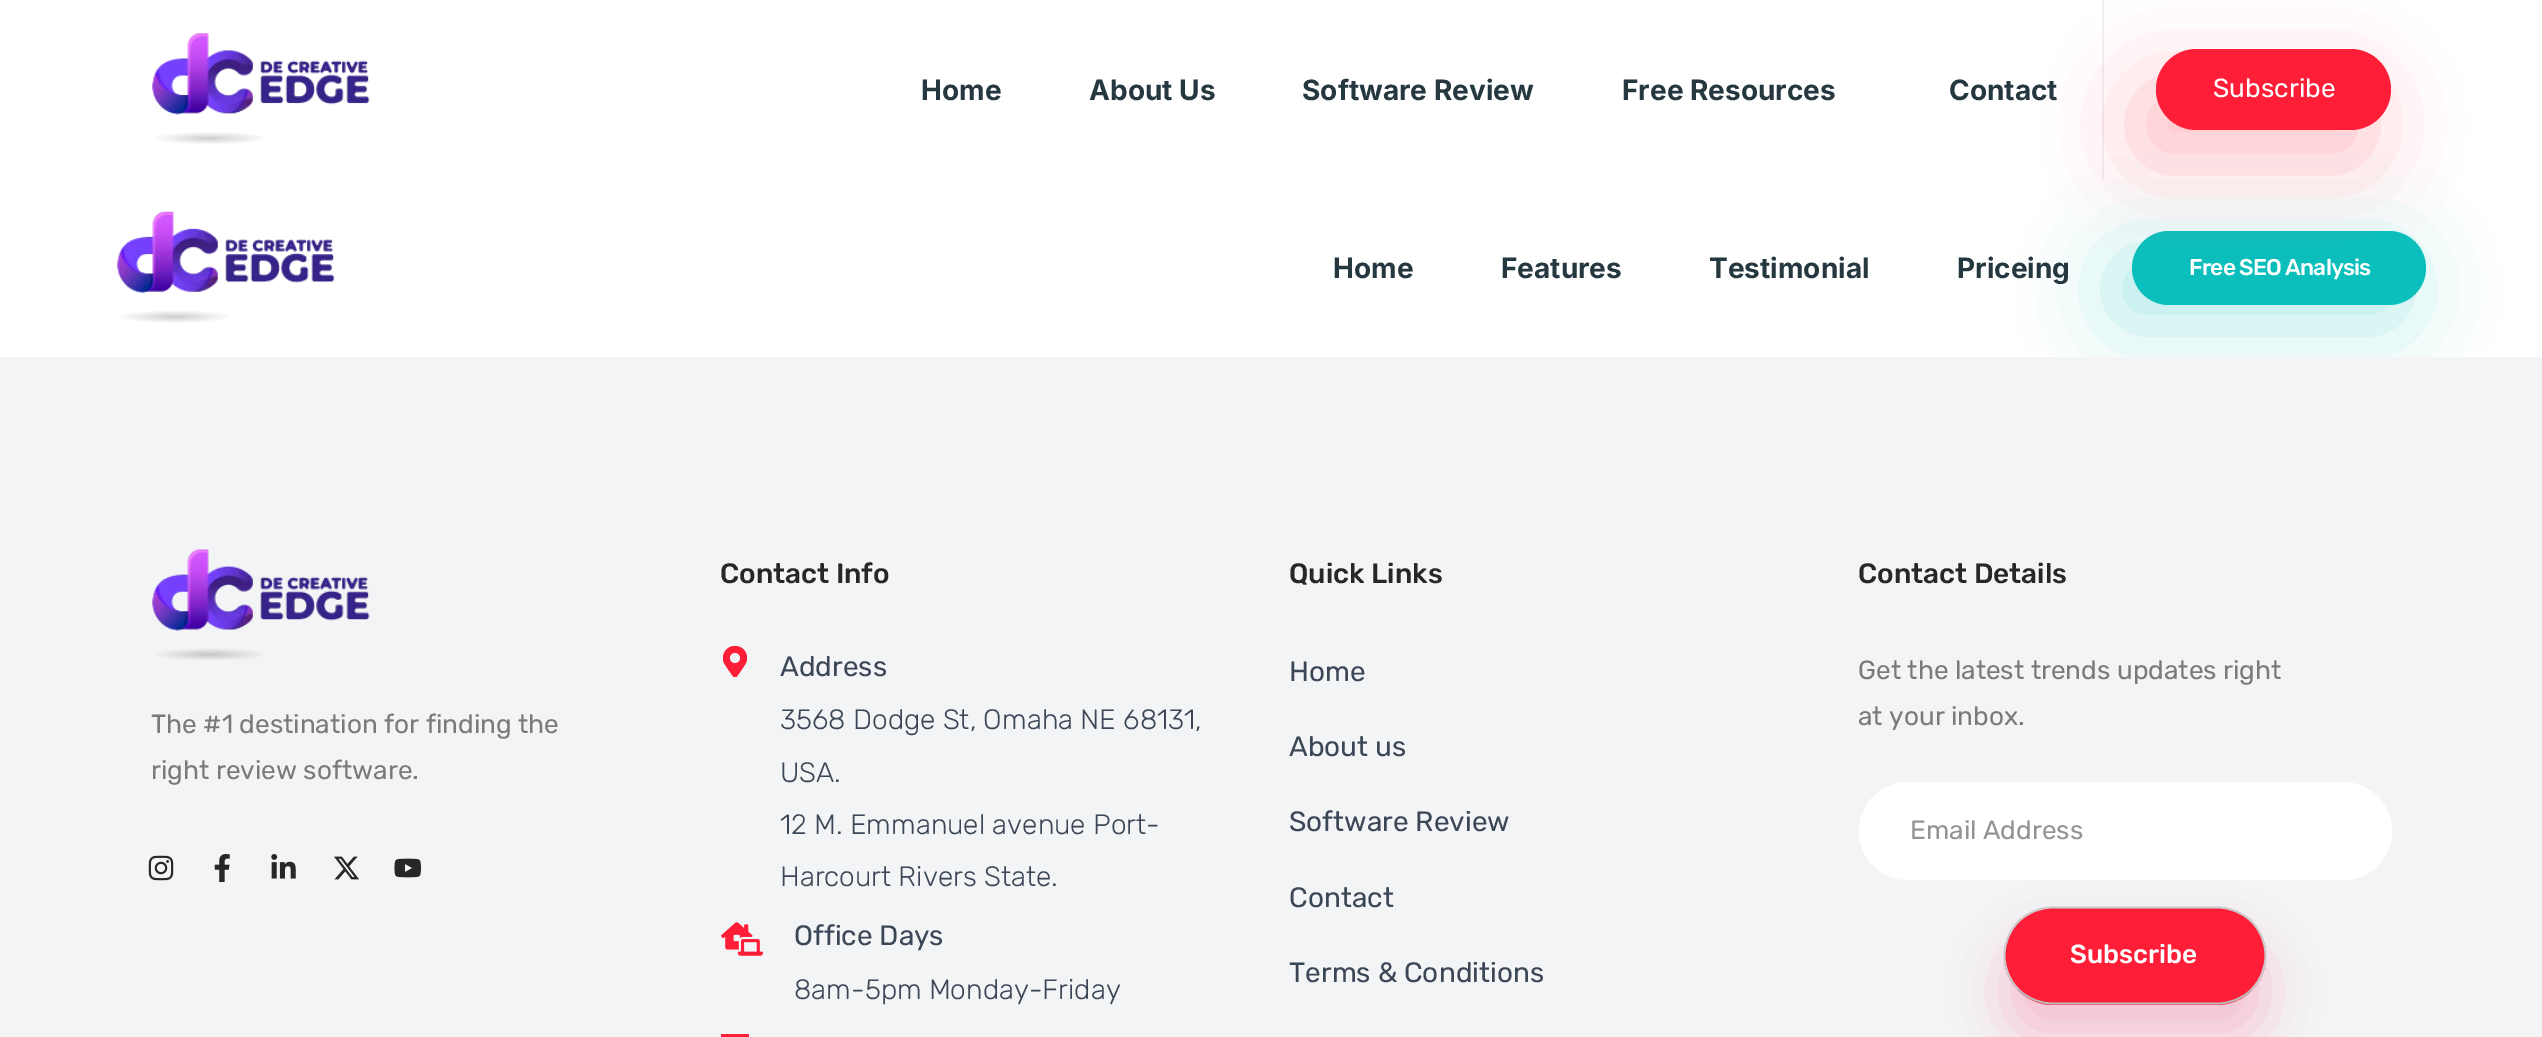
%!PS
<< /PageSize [2542 1037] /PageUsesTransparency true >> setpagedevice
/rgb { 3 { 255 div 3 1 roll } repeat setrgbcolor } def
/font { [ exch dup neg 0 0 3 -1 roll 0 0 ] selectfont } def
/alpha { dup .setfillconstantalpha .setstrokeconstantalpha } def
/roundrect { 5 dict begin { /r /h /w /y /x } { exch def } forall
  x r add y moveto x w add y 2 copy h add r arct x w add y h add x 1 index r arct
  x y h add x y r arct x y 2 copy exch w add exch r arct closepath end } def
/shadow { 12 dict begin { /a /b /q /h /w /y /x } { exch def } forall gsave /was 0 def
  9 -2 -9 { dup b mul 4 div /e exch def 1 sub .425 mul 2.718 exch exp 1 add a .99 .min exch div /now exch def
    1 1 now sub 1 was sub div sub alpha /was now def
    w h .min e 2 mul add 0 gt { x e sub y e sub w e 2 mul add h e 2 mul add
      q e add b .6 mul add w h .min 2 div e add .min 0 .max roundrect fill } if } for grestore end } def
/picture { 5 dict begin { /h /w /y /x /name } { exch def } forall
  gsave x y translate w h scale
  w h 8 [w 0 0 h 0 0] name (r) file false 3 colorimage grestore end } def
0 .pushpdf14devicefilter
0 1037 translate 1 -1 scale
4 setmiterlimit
255 255 255 rgb
0 0 2542 1037 rectfill
243 244 246 rgb
0 357 2542 680 rectfill
gsave
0 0 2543 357 rectclip
10 191 188 rgb
2111 252 294 74 37 44 0.3 shadow
grestore
255 255 255 rgb
2151 172 214 7 rectfill
(img/1.rgb) 152 33 218 111 picture
240 240 241 rgb
2102 0 2 179 rectfill
10 191 188 rgb
2132 231 294 74 37 roundrect fill
255 30 56 rgb
2135 84 235 81 40.5 44 0.27 shadow
2156 49 235 81 40.5 roundrect fill
(img/2.rgb) 117 211 218 112 picture
(img/3.rgb) 152 549 218 111 picture
(img/4.rgb) 148 855 26 26 picture
(img/5.rgb) 214 854 16 28 picture
(img/6.rgb) 271 854 25 25 picture
(img/7.rgb) 334 856 25 24 picture
(img/8.rgb) 394 858 27 20 picture
(img/9.rgb) 723 646 24 31 picture
(img/10.rgb) 721 922 42 34 picture
721 1034 28 3 rectfill
253 52 110 rgb
2004 942 262 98 49 26 0.25 shadow
255 255 255 rgb
1859 782 533 98 49 roundrect fill
255 30 56 rgb
2004 907 262 98 49 roundrect fill
187 187 187 rgb
1.8 setlinewidth
2251.5 989.5 moveto 2242.5 998.5 2230 1003.5 2217 1003.5 curveto 2053 1003.5 lineto 2040 1003.5 2027.5 998.5 2018.5 989.5 curveto stroke
204 204 204 rgb
2018.5 989.5 moveto 2009.5 980.5 2004.5 968.5 2004.5 955.5 curveto 2004.5 942.5 2009.5 930.5 2018.5 921.5 curveto 2027.5 912.5 2040 907.5 2053 907.5 curveto 2217 907.5 lineto 2230 907.5 2242.5 912.5 2251.5 921.5 curveto 2260.5 930.5 2265.5 942.5 2265.5 955.5 curveto 2265.5 968.5 2260.5 980.5 2251.5 989.5 curveto stroke
/Inter-Bold 28 font
37 55 63 rgb
[
  [(Home) 921 100]
  [(About Us) 1089 100]
  [(Software Review) 1302 100]
  [(Free Resources) 1622 100]
  [(Contact) 1949 100]
] { aload pop moveto show } forall
/Rubik-Regular 26.25 font
255 255 255 rgb
2213 97 moveto (Subscribe) show
/Inter-Bold 28 font
37 55 63 rgb
[
  [(Home) 1333 278]
  [(Features) 1501 278]
  [(Testimonial) 1709 278]
  [(Priceing) 1957 278]
] { aload pop moveto show } forall
/Rubik-Medium 22.75 font
255 255 255 rgb
2189 275 moveto -0.9 0 (Free SEO Analysis) ashow
/Rubik-Regular 26.25 font
122 122 122 rgb
151 733 moveto (The #1 destination for finding the) show
151 779 moveto (right review software.) show
/Rubik-Medium 28 font
38 39 41 rgb
720 583 moveto (Contact Info) show
/Rubik-Regular 28 font
59 70 86 rgb
780 676 moveto (Address) show
/Rubik-Light 28 font
[
  [(3568 Dodge St, Omaha NE 68131,) 780 729]
  [(USA.) 780 782]
  [(12 M. Emmanuel avenue Port-) 780 834]
  [(Harcourt Rivers State.) 780 886]
] { aload pop moveto show } forall
/Rubik-Regular 28 font
794 945 moveto (Office Days) show
/Rubik-Light 28 font
794 999 moveto (8am-5pm Monday-Friday) show
/Rubik-Medium 28 font
38 39 41 rgb
1289 583 moveto (Quick Links) show
/Rubik-Regular 28 font
59 70 86 rgb
[
  [(Home) 1289 681]
  [(About us) 1289 756]
  [(Software Review) 1289 831]
  [(Contact) 1289 907]
  [(Terms & Conditions) 1289 982]
] { aload pop moveto show } forall
/Rubik-Medium 28 font
38 39 41 rgb
1858 583 moveto (Contact Details) show
/Rubik-Regular 26.25 font
122 122 122 rgb
1858 679 moveto (Get the latest trends updates right) show
1858 725 moveto (at your inbox.) show
147 147 148 rgb
1910 839 moveto (Email Address) show
/Rubik-Medium 26.25 font
255 255 255 rgb
2070 963 moveto (Subscribe) show
.poppdf14devicefilter showpage
